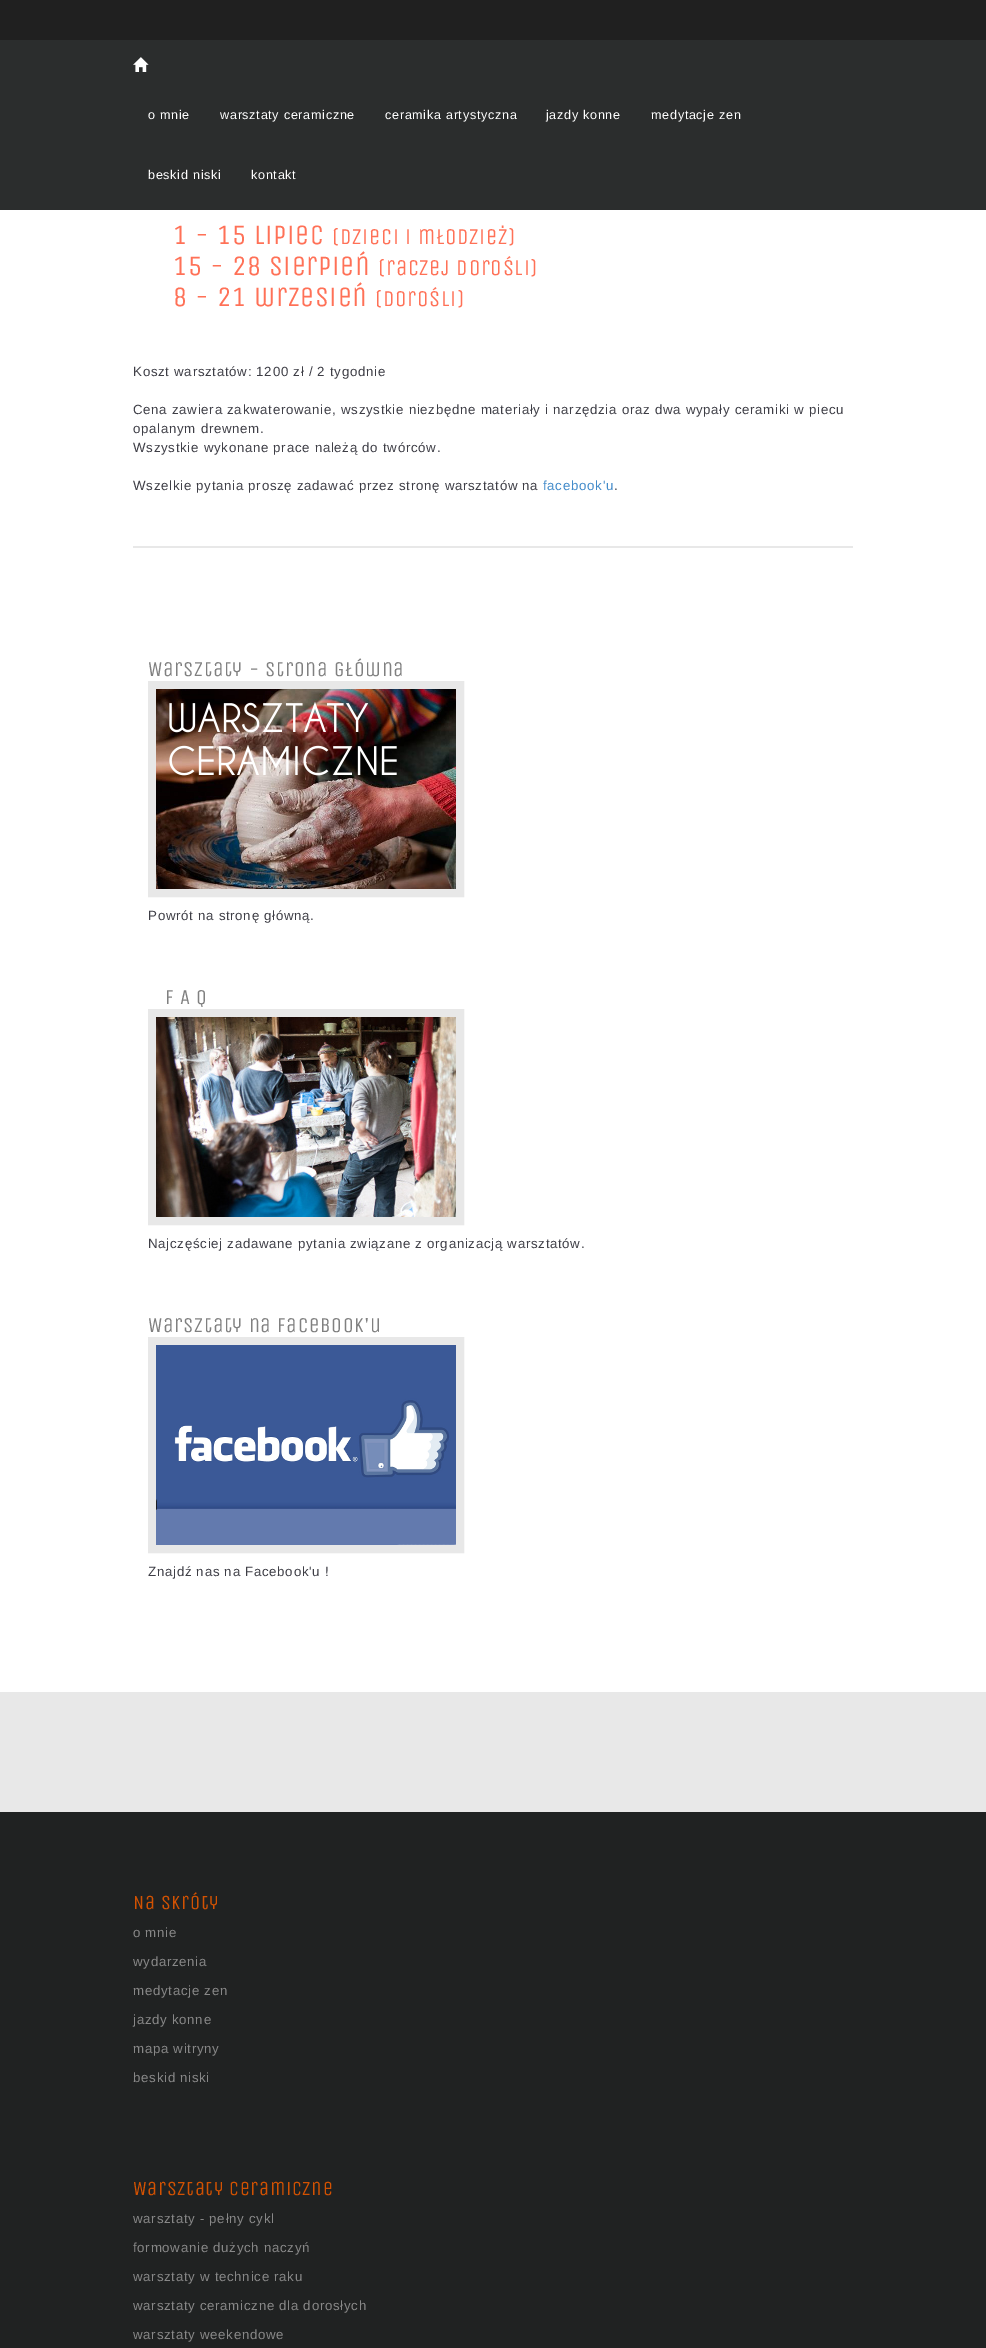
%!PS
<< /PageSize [986 2348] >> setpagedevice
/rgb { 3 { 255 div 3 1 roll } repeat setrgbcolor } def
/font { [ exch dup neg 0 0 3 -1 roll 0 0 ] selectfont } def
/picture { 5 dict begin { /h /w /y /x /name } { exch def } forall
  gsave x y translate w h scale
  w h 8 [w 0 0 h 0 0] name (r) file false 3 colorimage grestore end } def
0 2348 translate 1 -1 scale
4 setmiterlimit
255 255 255 rgb
0 0 986 2348 rectfill
43 45 45 rgb
0 40 986 170 rectfill
32 32 32 rgb
0 0 986 40 rectfill
(img/1.rgb) 133 57 16 15 picture
232 232 232 rgb
133 546 720 2 rectfill
8 setlinewidth
152 685 308 208 rectstroke
(img/2.rgb) 156 689 300 200 picture
152 1013 308 208 rectstroke
(img/3.rgb) 156 1017 300 200 picture
152 1341 308 208 rectstroke
(img/4.rgb) 156 1345 300 200 picture
0 1692 986 120 rectfill
32 34 34 rgb
0 1812 986 536 rectfill
/LiberationSans-Regular 12.6 font
255 255 255 rgb
148 119 moveto 0.7 0 (o mnie) ashow
220 119 moveto 0.7 0 (warsztaty ceramiczne) ashow
385 119 moveto 0.7 0 (ceramika artystyczna) ashow
546 119 moveto 0.7 0 (jazdy konne) ashow
651 119 moveto 0.7 0 (medytacje zen) ashow
148 179 moveto 0.7 0 (beskid niski) ashow
251 179 moveto 0.7 0 (kontakt) ashow
/UnicaOne-Regular 28 font
255 113 87 rgb
173 244 moveto 0.7 0 (1 - 15 lipiec) ashow
/UnicaOne-Regular 22.5 font
332 244 moveto 0.7 0 (\(dzieci i młodzież\)) ashow
/UnicaOne-Regular 28 font
173 275 moveto 0.7 0 (15 - 28 sierpień) ashow
/UnicaOne-Regular 22.5 font
378 275 moveto 0.7 0 (\(raczej dorośli\)) ashow
/UnicaOne-Regular 28 font
173 306 moveto 0.7 0 (8 - 21 wrzesień) ashow
/UnicaOne-Regular 22.5 font
375 306 moveto 0.7 0 (\(dorośli\)) ashow
/LiberationSans-Regular 13.3 font
62 62 70 rgb
133 376 moveto 0.7 0 (Koszt warsztatów: 1200 zł / 2 tygodnie) ashow
133 414 moveto 0.7 0 (Cena zawiera zakwaterowanie, wszystkie niezbędne materiały i narzędzia oraz dwa wypały ceramiki w piecu) ashow
133 433 moveto 0.7 0 (opalanym drewnem.) ashow
133 452 moveto 0.7 0 (Wszystkie wykonane prace należą do twórców.) ashow
133 490 moveto 0.7 0 (Wszelkie pytania proszę zadawać przez stronę warsztatów na) ashow
66 139 202 rgb
543 490 moveto 0.7 0 (facebook'u) ashow
62 62 70 rgb
614 490 moveto 0.7 0 (.) ashow
/UnicaOne-Regular 21 font
128 128 128 rgb
148 676 moveto 0.7 0 (Warsztaty - strona główna) ashow
/LiberationSans-Regular 13.3 font
62 62 70 rgb
148 920 moveto 0.7 0 (Powrót na stronę główną.) ashow
/UnicaOne-Regular 21 font
128 128 128 rgb
165 1004 moveto 0.7 0 (F A Q) ashow
/LiberationSans-Regular 13.3 font
62 62 70 rgb
148 1248 moveto 0.7 0 (Najczęściej zadawane pytania związane z organizacją warsztatów.) ashow
/UnicaOne-Regular 21 font
128 128 128 rgb
148 1332 moveto 0.7 0 (Warsztaty na Facebook'u) ashow
/LiberationSans-Regular 13.3 font
62 62 70 rgb
148 1576 moveto 0.7 0 (Znajdź nas na Facebook'u !) ashow
/UnicaOne-Regular 20 font
210 82 2 rgb
133 1909 moveto 0.7 0 (Na skróty) ashow
/LiberationSans-Regular 13.3 font
136 136 136 rgb
133 1937 moveto 0.7 0 (o mnie) ashow
133 1966 moveto 0.7 0 (wydarzenia) ashow
133 1995 moveto 0.7 0 (medytacje zen) ashow
133 2024 moveto 0.7 0 (jazdy konne) ashow
133 2053 moveto 0.7 0 (mapa witryny) ashow
133 2082 moveto 0.7 0 (beskid niski) ashow
/UnicaOne-Regular 20 font
210 82 2 rgb
133 2195 moveto 0.7 0 (Warsztaty ceramiczne) ashow
/LiberationSans-Regular 13.3 font
136 136 136 rgb
133 2223 moveto 0.7 0 (warsztaty - pełny cykl) ashow
133 2252 moveto 0.7 0 (formowanie dużych naczyń) ashow
133 2281 moveto 0.7 0 (warsztaty w technice raku) ashow
133 2310 moveto 0.7 0 (warsztaty ceramiczne dla dorosłych) ashow
133 2339 moveto 0.7 0 (warsztaty weekendowe) ashow
showpage
